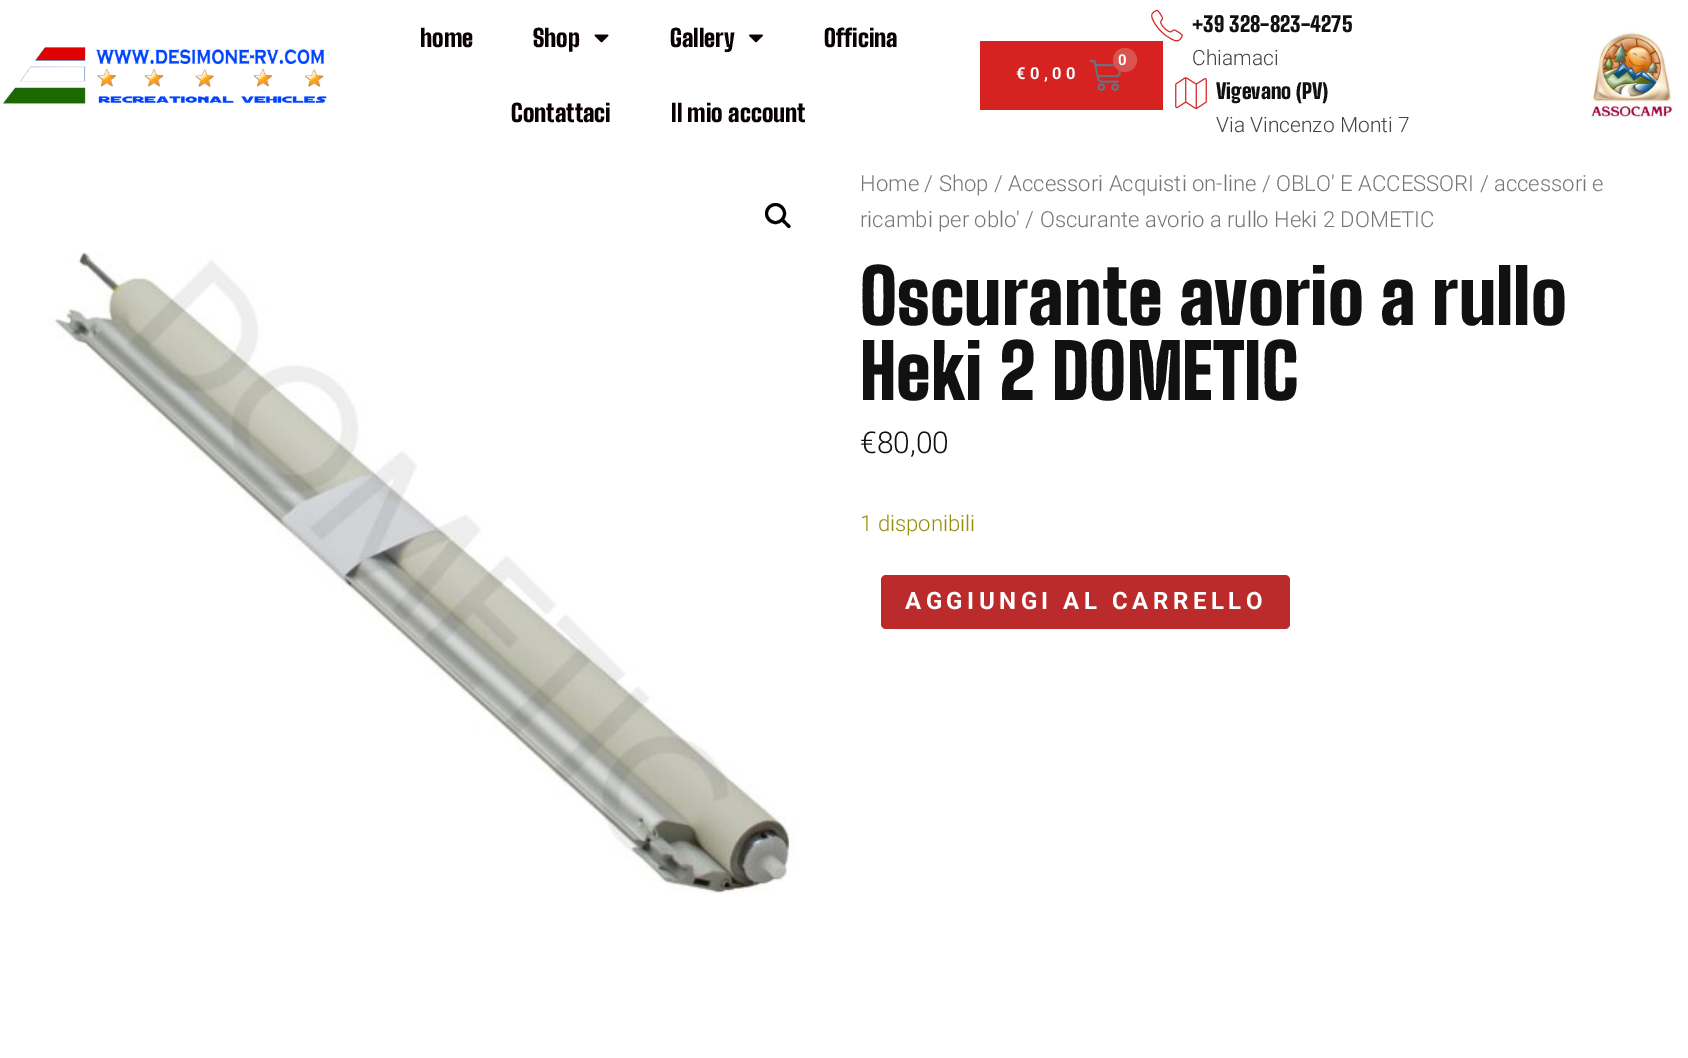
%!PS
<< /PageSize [1688 1058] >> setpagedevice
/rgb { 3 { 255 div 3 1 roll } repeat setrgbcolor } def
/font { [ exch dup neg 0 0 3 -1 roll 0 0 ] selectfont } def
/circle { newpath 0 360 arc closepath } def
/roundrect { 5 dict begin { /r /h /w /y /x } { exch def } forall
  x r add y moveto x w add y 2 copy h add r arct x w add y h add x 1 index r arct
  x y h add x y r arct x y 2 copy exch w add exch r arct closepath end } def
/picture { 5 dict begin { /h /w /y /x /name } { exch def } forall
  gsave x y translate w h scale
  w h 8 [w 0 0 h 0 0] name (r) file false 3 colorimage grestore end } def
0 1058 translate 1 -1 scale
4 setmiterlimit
255 255 255 rgb
0 0 1688 1058 rectfill
(img/1.rgb) 2 47 325 57 picture
(img/2.rgb) 594 34 15 9 picture
(img/3.rgb) 749 34 14 9 picture
215 34 34 rgb
980 41 183 69 rectfill
(img/4.rgb) 1089 60 32 31 picture
217 83 79 rgb
1125 60 12 circle fill
(img/5.rgb) 1151 9 32 33 picture
(img/6.rgb) 1175 77 32 32 picture
(img/7.rgb) 1590 31 83 88 picture
0 0 0 rgb
3 setlinewidth
775.5 213.5 9 circle stroke
782 219.5 moveto 783.5 217.5 786 221.5 787 222.5 curveto 788 223.5 792 226 790 227.5 curveto 788.5 229.5 786 225.5 785 224.5 curveto 784 223.5 780 221 782 219.5 curveto closepath fill
(img/8.rgb) 48 252 748 641 picture
188 43 43 rgb
881 575 409 54 5 roundrect fill
/BigShouldersDisplay-Black 24 font
9 1 1 rgb
[
  [(home) 420 47]
  [(Shop) 533 47]
  [(Gallery) 670 47]
  [(Officina) 824 47]
  [(Contattaci) 511 122]
  [(Il mio account) 671 122]
] { aload pop moveto show } forall
/Roboto-Bold 15 font
255 255 255 rgb
1118 65 moveto 4.5 0 (0) ashow
/Roboto-Bold 16.5 font
1016 79 moveto 4.5 0 (€0,00) ashow
/BigShouldersDisplay-Black 21 font
17 17 17 rgb
1192 32 moveto (+39 328-823-4275) show
/Roboto-Light 21 font
68 68 68 rgb
1192 65 moveto (Chiamaci) show
/BigShouldersDisplay-Black 21 font
17 17 17 rgb
1216 99 moveto (Vigevano \(PV\)) show
/Roboto-Light 21 font
68 68 68 rgb
1216 132 moveto (Via Vincenzo Monti 7) show
/Roboto-Light 22.1 font
118 118 118 rgb
860 191 moveto (Home / Shop / Accessori Acquisti on-line / OBLO' E ACCESSORI / accessori e) show
860 227 moveto (ricambi per oblo' / Oscurante avorio a rullo Heki 2 DOMETIC) show
/BigShouldersDisplay-Black 75 font
17 17 17 rgb
860 325 moveto (Oscurante avorio a rullo) show
860 400 moveto (Heki 2 DOMETIC) show
/Roboto-Light 30 font
860 453 moveto (€80,00) show
/Roboto-Light 22.1 font
149 142 9 rgb
860 531 moveto (1 disponibili) show
/Roboto-Bold 24 font
255 255 255 rgb
905 609 moveto 4.5 0 (AGGIUNGI AL CARRELLO) ashow
showpage
